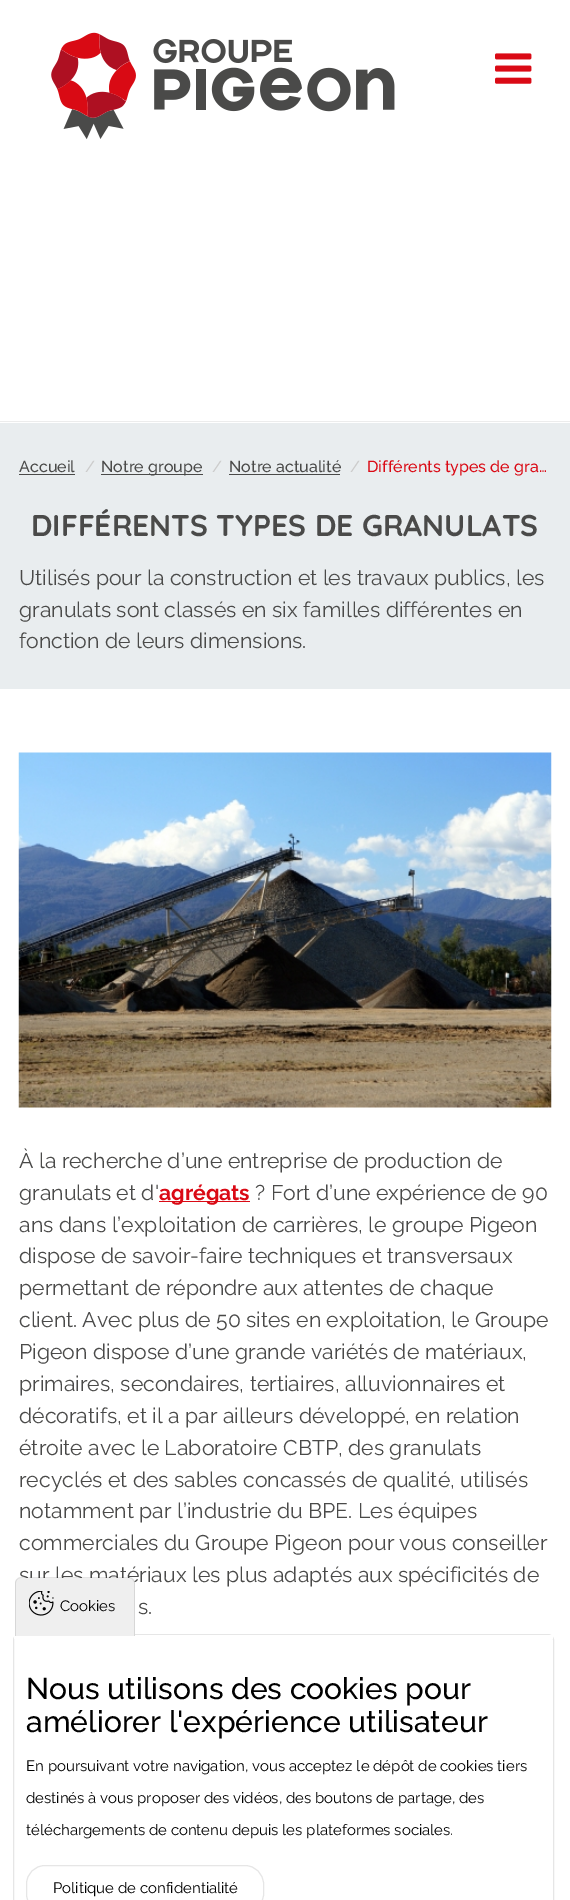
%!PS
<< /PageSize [570 1900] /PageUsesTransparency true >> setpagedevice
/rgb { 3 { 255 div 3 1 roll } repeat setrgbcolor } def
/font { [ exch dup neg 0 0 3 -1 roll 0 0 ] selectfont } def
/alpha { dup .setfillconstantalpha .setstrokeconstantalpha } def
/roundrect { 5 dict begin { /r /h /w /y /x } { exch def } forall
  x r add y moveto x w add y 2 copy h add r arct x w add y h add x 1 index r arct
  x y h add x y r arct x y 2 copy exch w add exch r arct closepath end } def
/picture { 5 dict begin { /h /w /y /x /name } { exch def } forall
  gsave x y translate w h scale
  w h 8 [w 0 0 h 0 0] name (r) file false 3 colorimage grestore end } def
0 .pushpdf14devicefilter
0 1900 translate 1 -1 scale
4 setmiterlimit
233 237 239 rgb
0 0 570 1900 rectfill
255 255 255 rgb
0 0 570 423 rectfill
236 236 236 rgb
0 421 570 1 rectfill
(img/1.rgb) 51 32 344 108 picture
(img/2.rgb) 495 53 37 31 picture
[
  [19 474 56 1 74 74 73]
  [101 474 102 1 74 74 73]
  [229 474 111 1 74 74 73]
  [0 689 570 1211 255 255 255]
] { aload pop rgb rectfill } forall
(img/3.rgb) 18 752 534 356 picture
218 10 21 rgb
159 1201 91 1 rectfill
230 230 230 rgb
19 1634.5 moveto 548 1634.5 lineto 551 1634.5 553.5 1637 553.5 1640 curveto 553.5 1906.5 lineto 13.5 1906.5 lineto 13.5 1640 lineto 13.5 1637 16 1634.5 19 1634.5 curveto closepath stroke
255 255 255 rgb
14 1635 539 4 rectfill
230 230 230 rgb
26.5 1865.5 237 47 18.5 roundrect stroke
/Raleway-Medium 16 font
74 74 73 rgb
19 472 moveto (Accueil) show
204 204 204 rgb
85 472 moveto (/) show
74 74 73 rgb
101 472 moveto (Notre groupe) show
204 204 204 rgb
212 472 moveto (/) show
74 74 73 rgb
229 472 moveto (Notre actualité) show
204 204 204 rgb
350 472 moveto (/) show
218 10 21 rgb
367 472 moveto (Différents types de gra…) show
/Quicksand-Bold 30 font
74 74 73 rgb
31 536 moveto (DIFFÉRENTS TYPES DE GRANULATS) show
/Raleway-Regular 21.25 font
[
  [(Utilisés pour la construction et les travaux publics, les) 19 585]
  [(granulats sont classés en six familles différentes en) 19 617]
  [(fonction de leurs dimensions.) 19 648]
  [(À la recherche d’une entreprise de production de) 19 1168]
  [(granulats et d') 19 1200]
] { aload pop moveto show } forall
/Raleway-Bold 21.25 font
218 10 21 rgb
159 1200 moveto (agrégats) show
/Raleway-Regular 21.25 font
74 74 73 rgb
[
  [(? Fort d’une expérience de 90) 255 1200]
  [(ans dans l’exploitation de carrières, le groupe Pigeon) 19 1232]
  [(dispose de savoir-faire techniques et transversaux) 19 1263]
  [(permettant de répondre aux attentes de chaque) 19 1295]
  [(client. Avec plus de 50 sites en exploitation, le Groupe) 19 1327]
  [(Pigeon dispose d’une grande variétés de matériaux,) 19 1359]
  [(primaires, secondaires, tertiaires, alluvionnaires et) 19 1391]
  [(décoratifs, et il a par ailleurs développé, en relation) 19 1423]
  [(étroite avec le Laboratoire CBTP, des granulats) 19 1455]
  [(recyclés et des sables concassés de qualité, utilisés) 19 1487]
  [(notamment par l’industrie du BPE. Les équipes) 19 1518]
  [(commerciales du Groupe Pigeon pour vous conseiller) 19 1550]
  [(sur les matériaux les plus adaptés aux spécificités de) 19 1582]
  [(s.) 138 1614]
] { aload pop moveto show } forall
239 239 239 rgb
21 1578 moveto 129 1578 lineto 132.5 1578 135 1580.5 135 1584 curveto 135 1636 lineto 15 1636 lineto 15 1584 lineto 15 1580.5 17.5 1578 21 1578 curveto closepath fill
0.1 alpha
0 0 0 rgb
21 1577 moveto 129 1577 lineto 132 1577 135 1580 135 1583 curveto 135 1636 lineto 15 1636 lineto 15 1583 lineto 15 1580 18 1577 21 1577 curveto closepath 21 1578 moveto 129 1578 lineto 131 1578 134 1580 134 1583 curveto 134 1636 lineto 16 1636 lineto 16 1583 lineto 16 1580 18 1578 21 1578 curveto closepath eofill
1 alpha
(img/4.rgb) 29 1591 25 25 picture
/Raleway-Regular 15 font
60 1611 moveto (Cookies) show
/Raleway-Medium 30 font
26 1699 moveto (Nous utilisons des cookies pour) show
26 1732 moveto (améliorer l'expérience utilisateur) show
/Raleway-Regular 15 font
[
  [(En poursuivant votre navigation, vous acceptez le dépôt de cookies tiers) 26 1771]
  [(destinés à vous proposer des vidéos, des boutons de partage, des) 26 1803]
  [(téléchargements de contenu depuis les plateformes sociales.) 26 1835]
  [(Politique de confidentialité) 53 1893]
] { aload pop moveto show } forall
.poppdf14devicefilter showpage
